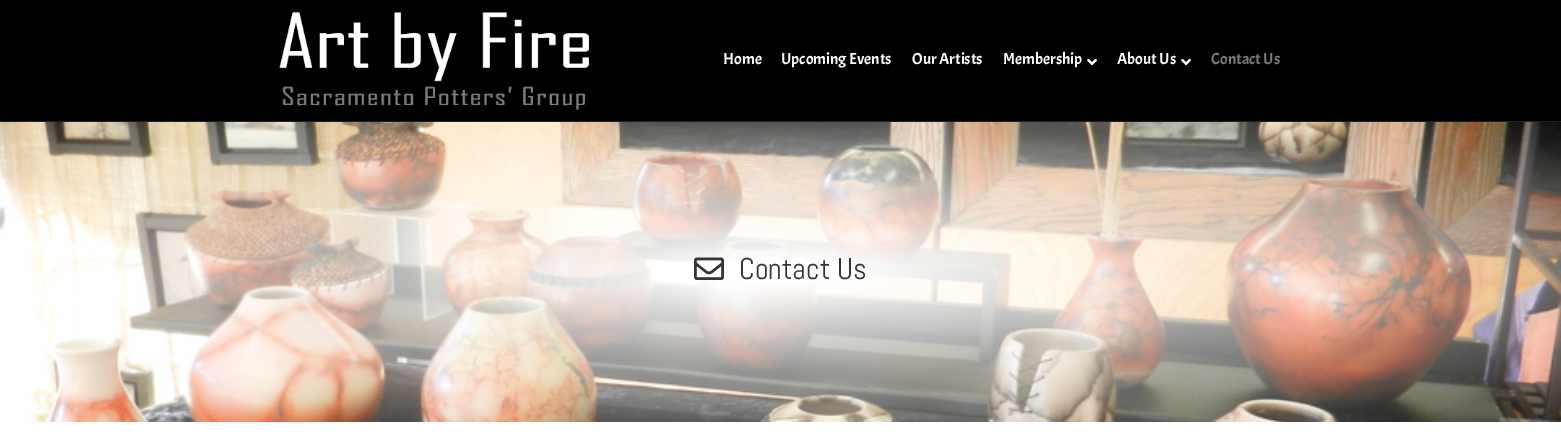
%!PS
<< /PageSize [1561 440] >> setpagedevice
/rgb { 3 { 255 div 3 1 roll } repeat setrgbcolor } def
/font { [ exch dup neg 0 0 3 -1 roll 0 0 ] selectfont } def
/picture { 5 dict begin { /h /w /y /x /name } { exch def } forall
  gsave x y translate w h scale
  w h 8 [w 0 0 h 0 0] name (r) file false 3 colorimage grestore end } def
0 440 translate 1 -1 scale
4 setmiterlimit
0 0 0 rgb
0 0 1561 440 rectfill
33 33 33 rgb
0 121 1561 1 rectfill
(img/1.rgb) 279 12 310 99 picture
(img/2.rgb) 1087 58 10 8 picture
(img/2.rgb) 1181 58 10 8 picture
255 255 255 rgb
0 422 1561 18 rectfill
(img/3.rgb) 0 122 1561 300 picture
(img/4.rgb) 694 257 30 23 picture
/Acme-Regular 16 font
[
  [(Home) 723 64]
  [(Upcoming Events) 781 64]
  [(Our Artists) 912 64]
  [(Membership) 1003 64]
  [(About Us) 1117 64]
] { aload pop moveto show } forall
124 124 124 rgb
1211 64 moveto (Contact Us) show
/Abel-Regular 30 font
53 53 53 rgb
739 279 moveto (Contact Us) show
showpage
